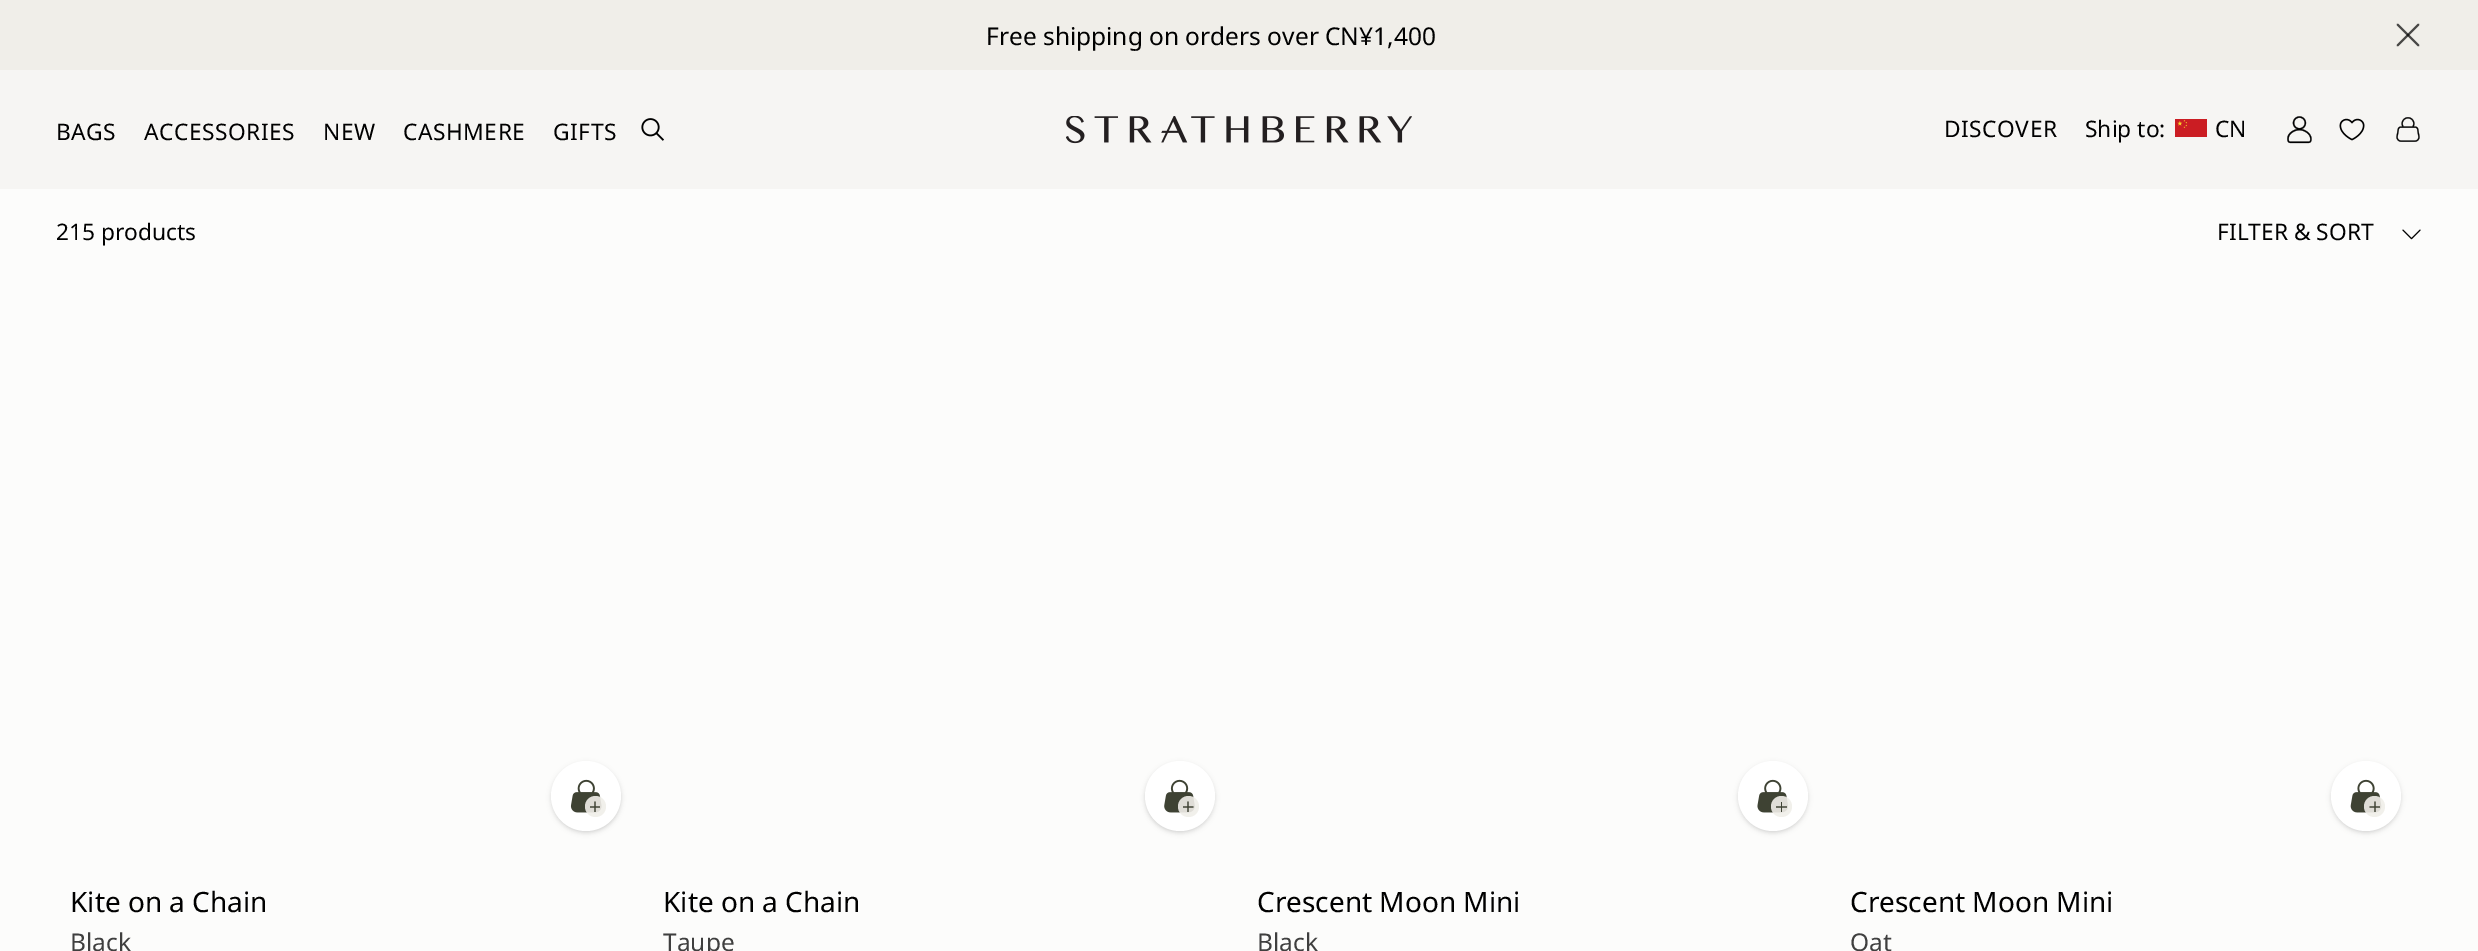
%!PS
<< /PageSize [2478 951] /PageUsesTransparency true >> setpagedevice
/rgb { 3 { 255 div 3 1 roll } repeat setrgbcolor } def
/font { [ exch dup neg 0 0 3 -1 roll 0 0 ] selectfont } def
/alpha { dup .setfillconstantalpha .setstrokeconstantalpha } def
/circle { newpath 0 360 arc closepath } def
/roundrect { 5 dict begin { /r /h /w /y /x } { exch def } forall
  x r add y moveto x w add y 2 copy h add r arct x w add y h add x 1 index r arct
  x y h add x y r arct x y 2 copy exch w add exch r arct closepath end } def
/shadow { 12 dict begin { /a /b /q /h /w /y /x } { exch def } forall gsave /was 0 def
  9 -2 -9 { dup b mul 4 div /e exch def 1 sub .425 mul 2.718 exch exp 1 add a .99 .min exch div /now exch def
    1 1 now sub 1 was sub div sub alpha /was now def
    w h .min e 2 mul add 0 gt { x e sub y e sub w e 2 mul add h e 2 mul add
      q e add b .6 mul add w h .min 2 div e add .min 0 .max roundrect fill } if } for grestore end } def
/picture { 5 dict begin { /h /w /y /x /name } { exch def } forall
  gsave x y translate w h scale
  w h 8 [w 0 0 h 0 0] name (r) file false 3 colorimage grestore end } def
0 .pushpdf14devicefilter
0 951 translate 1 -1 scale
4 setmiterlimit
252 252 251 rgb
0 0 2478 951 rectfill
240 238 233 rgb
0 0 2478 70 rectfill
72 71 70 rgb
1.8 setlinewidth
1 setlinecap
2397.5 24.5 moveto 2418.5 45.5 lineto stroke
0.7 alpha
0 0 0 rgb
2418.5 24.5 moveto 2397.5 45.5 lineto stroke
1 alpha
246 245 243 rgb
0 70 2478 119 rectfill
(img/1.rgb) 641 118 23 23 picture
(img/2.rgb) 1066 116 346 28 picture
(img/3.rgb) 2175 119 32 18 picture
(img/4.rgb) 2287 116 25 28 picture
(img/5.rgb) 2339 118 26 23 picture
(img/6.rgb) 2396 117 24 25 picture
(img/7.rgb) 2402 229 19 11 picture
0 0 0 rgb
553 765 67 66 33 2 0.1 shadow
551 763 70 70 35 2.5 0.1 shadow
255 255 255 rgb
586 796 35 circle fill
(img/8.rgb) 570 779 32 34 picture
0.9 alpha
240 238 233 rgb
595.5 806.5 10.5 circle fill
1 alpha
62 66 51 rgb
1.3 setlinewidth
0 setlinecap
595 801.5 moveto 595 812 lineto 600 807 moveto 590 807 lineto stroke
0 0 0 rgb
1146 765 67 66 33 2 0.1 shadow
1145 763 70 70 35 2.5 0.1 shadow
255 255 255 rgb
1180 796 35 circle fill
(img/9.rgb) 1164 779 31 34 picture
0.9 alpha
240 238 233 rgb
1188.5 806.5 10.5 circle fill
1 alpha
62 66 51 rgb
1188 801.5 moveto 1188 812 lineto 1193.5 807 moveto 1183 807 lineto stroke
0 0 0 rgb
1740 765 66 66 33 2 0.1 shadow
1738 763 70 70 35 2.5 0.1 shadow
255 255 255 rgb
1773 796 35 circle fill
(img/10.rgb) 1757 779 32 34 picture
0.9 alpha
240 238 233 rgb
1781.5 806.5 10.5 circle fill
1 alpha
62 66 51 rgb
1781 802 1 10 rectfill
1787 807 moveto 1776 807 lineto stroke
0 0 0 rgb
2333 765 66 66 33 2 0.1 shadow
2331 763 70 70 35 2.5 0.1 shadow
255 255 255 rgb
2366 796 35 circle fill
(img/11.rgb) 2350 779 32 34 picture
0.9 alpha
240 238 233 rgb
2374.5 806.5 10.5 circle fill
1 alpha
62 66 51 rgb
2375 801.5 moveto 2375 812 lineto 2380 807 moveto 2369.5 807 lineto stroke
/NotoSans-Regular 24.5 font
0 0 0 rgb
986 45 moveto (Free shipping on orders over CN¥1,400) show
/NotoSans-Regular 22.75 font
56 140 moveto 0.5 0 (BAGS) ashow
144 140 moveto 0.5 0 (ACCESSORIES) ashow
323 140 moveto 0.5 0 (NEW) ashow
403 140 moveto 0.5 0 (CASHMERE) ashow
553 140 moveto 0.5 0 (GIFTS) ashow
1944 137 moveto 0.5 0 (DISCOVER) ashow
[
  [(Ship to:) 2085 137]
  [(CN) 2215 137]
  [(215 products) 56 240]
  [(FILTER & SORT) 2217 240]
] { aload pop moveto show } forall
/NotoSans-Regular 28 font
70 912 moveto (Kite on a Chain) show
/NotoSans-Regular 24.5 font
63 63 63 rgb
70 951 moveto (Black) show
/NotoSans-Regular 28 font
0 0 0 rgb
663 912 moveto (Kite on a Chain) show
/NotoSans-Regular 24.5 font
63 63 63 rgb
663 951 moveto (Taupe) show
/NotoSans-Regular 28 font
0 0 0 rgb
1257 912 moveto (Crescent Moon Mini) show
/NotoSans-Regular 24.5 font
63 63 63 rgb
1257 951 moveto (Black) show
/NotoSans-Regular 28 font
0 0 0 rgb
1850 912 moveto (Crescent Moon Mini) show
/NotoSans-Regular 24.5 font
63 63 63 rgb
1850 951 moveto (Oat) show
.poppdf14devicefilter showpage
